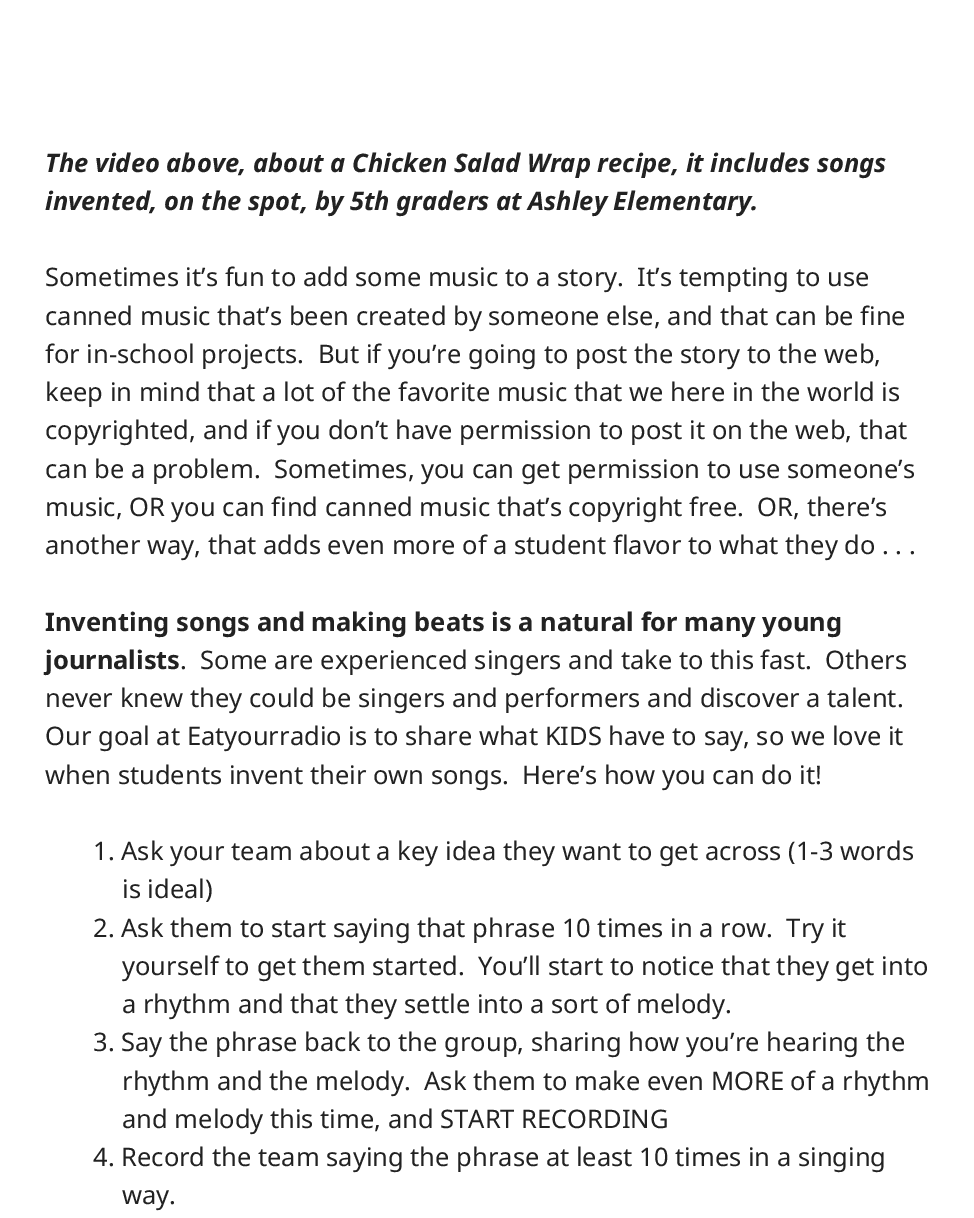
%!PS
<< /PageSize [974 1218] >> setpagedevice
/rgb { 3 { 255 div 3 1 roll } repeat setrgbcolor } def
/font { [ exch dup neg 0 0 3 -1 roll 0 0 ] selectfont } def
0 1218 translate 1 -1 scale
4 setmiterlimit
255 255 255 rgb
0 0 974 1218 rectfill
/NotoSans-BoldItalic 25.5 font
34 34 34 rgb
45 172 moveto (The video above, about a Chicken Salad Wrap recipe, it includes songs) show
45 210 moveto (invented, on the spot, by 5th graders at Ashley Elementary.) show
/NotoSans-Regular 25.5 font
[
  [(Sometimes it’s fun to add some music to a story.  It’s tempting to use) 45 286]
  [(canned music that’s been created by someone else, and that can be fine) 45 325]
  [(for in-school projects.  But if you’re going to post the story to the web,) 45 363]
  [(keep in mind that a lot of the favorite music that we here in the world is) 45 401]
  [(copyrighted, and if you don’t have permission to post it on the web, that) 45 439]
  [(can be a problem.  Sometimes, you can get permission to use someone’s) 45 478]
  [(music, OR you can find canned music that’s copyright free.  OR, there’s) 45 516]
  [(another way, that adds even more of a student flavor to what they do . . .) 45 554]
] { aload pop moveto show } forall
/NotoSans-Bold 25.5 font
45 631 moveto (Inventing songs and making beats is a natural for many young) show
45 669 moveto (journalists) show
/NotoSans-Regular 25.5 font
[
  [(.  Some are experienced singers and take to this fast.  Others) 180 669]
  [(never knew they could be singers and performers and discover a talent.) 45 707]
  [(Our goal at Eatyourradio is to share what KIDS have to say, so we love it) 45 745]
  [(when students invent their own songs.  Here’s how you can do it!) 45 784]
  [(1. Ask your team about a key idea they want to get across \(1-3 words) 93 860]
  [(is ideal\)) 122 898]
  [(2. Ask them to start saying that phrase 10 times in a row.  Try it) 93 937]
  [(yourself to get them started.  You’ll start to notice that they get into) 122 975]
  [(a rhythm and that they settle into a sort of melody.) 122 1013]
  [(3. Say the phrase back to the group, sharing how you’re hearing the) 93 1051]
  [(rhythm and the melody.  Ask them to make even MORE of a rhythm) 122 1090]
  [(and melody this time, and START RECORDING) 122 1128]
  [(4. Record the team saying the phrase at least 10 times in a singing) 93 1166]
  [(way.) 122 1204]
] { aload pop moveto show } forall
showpage
